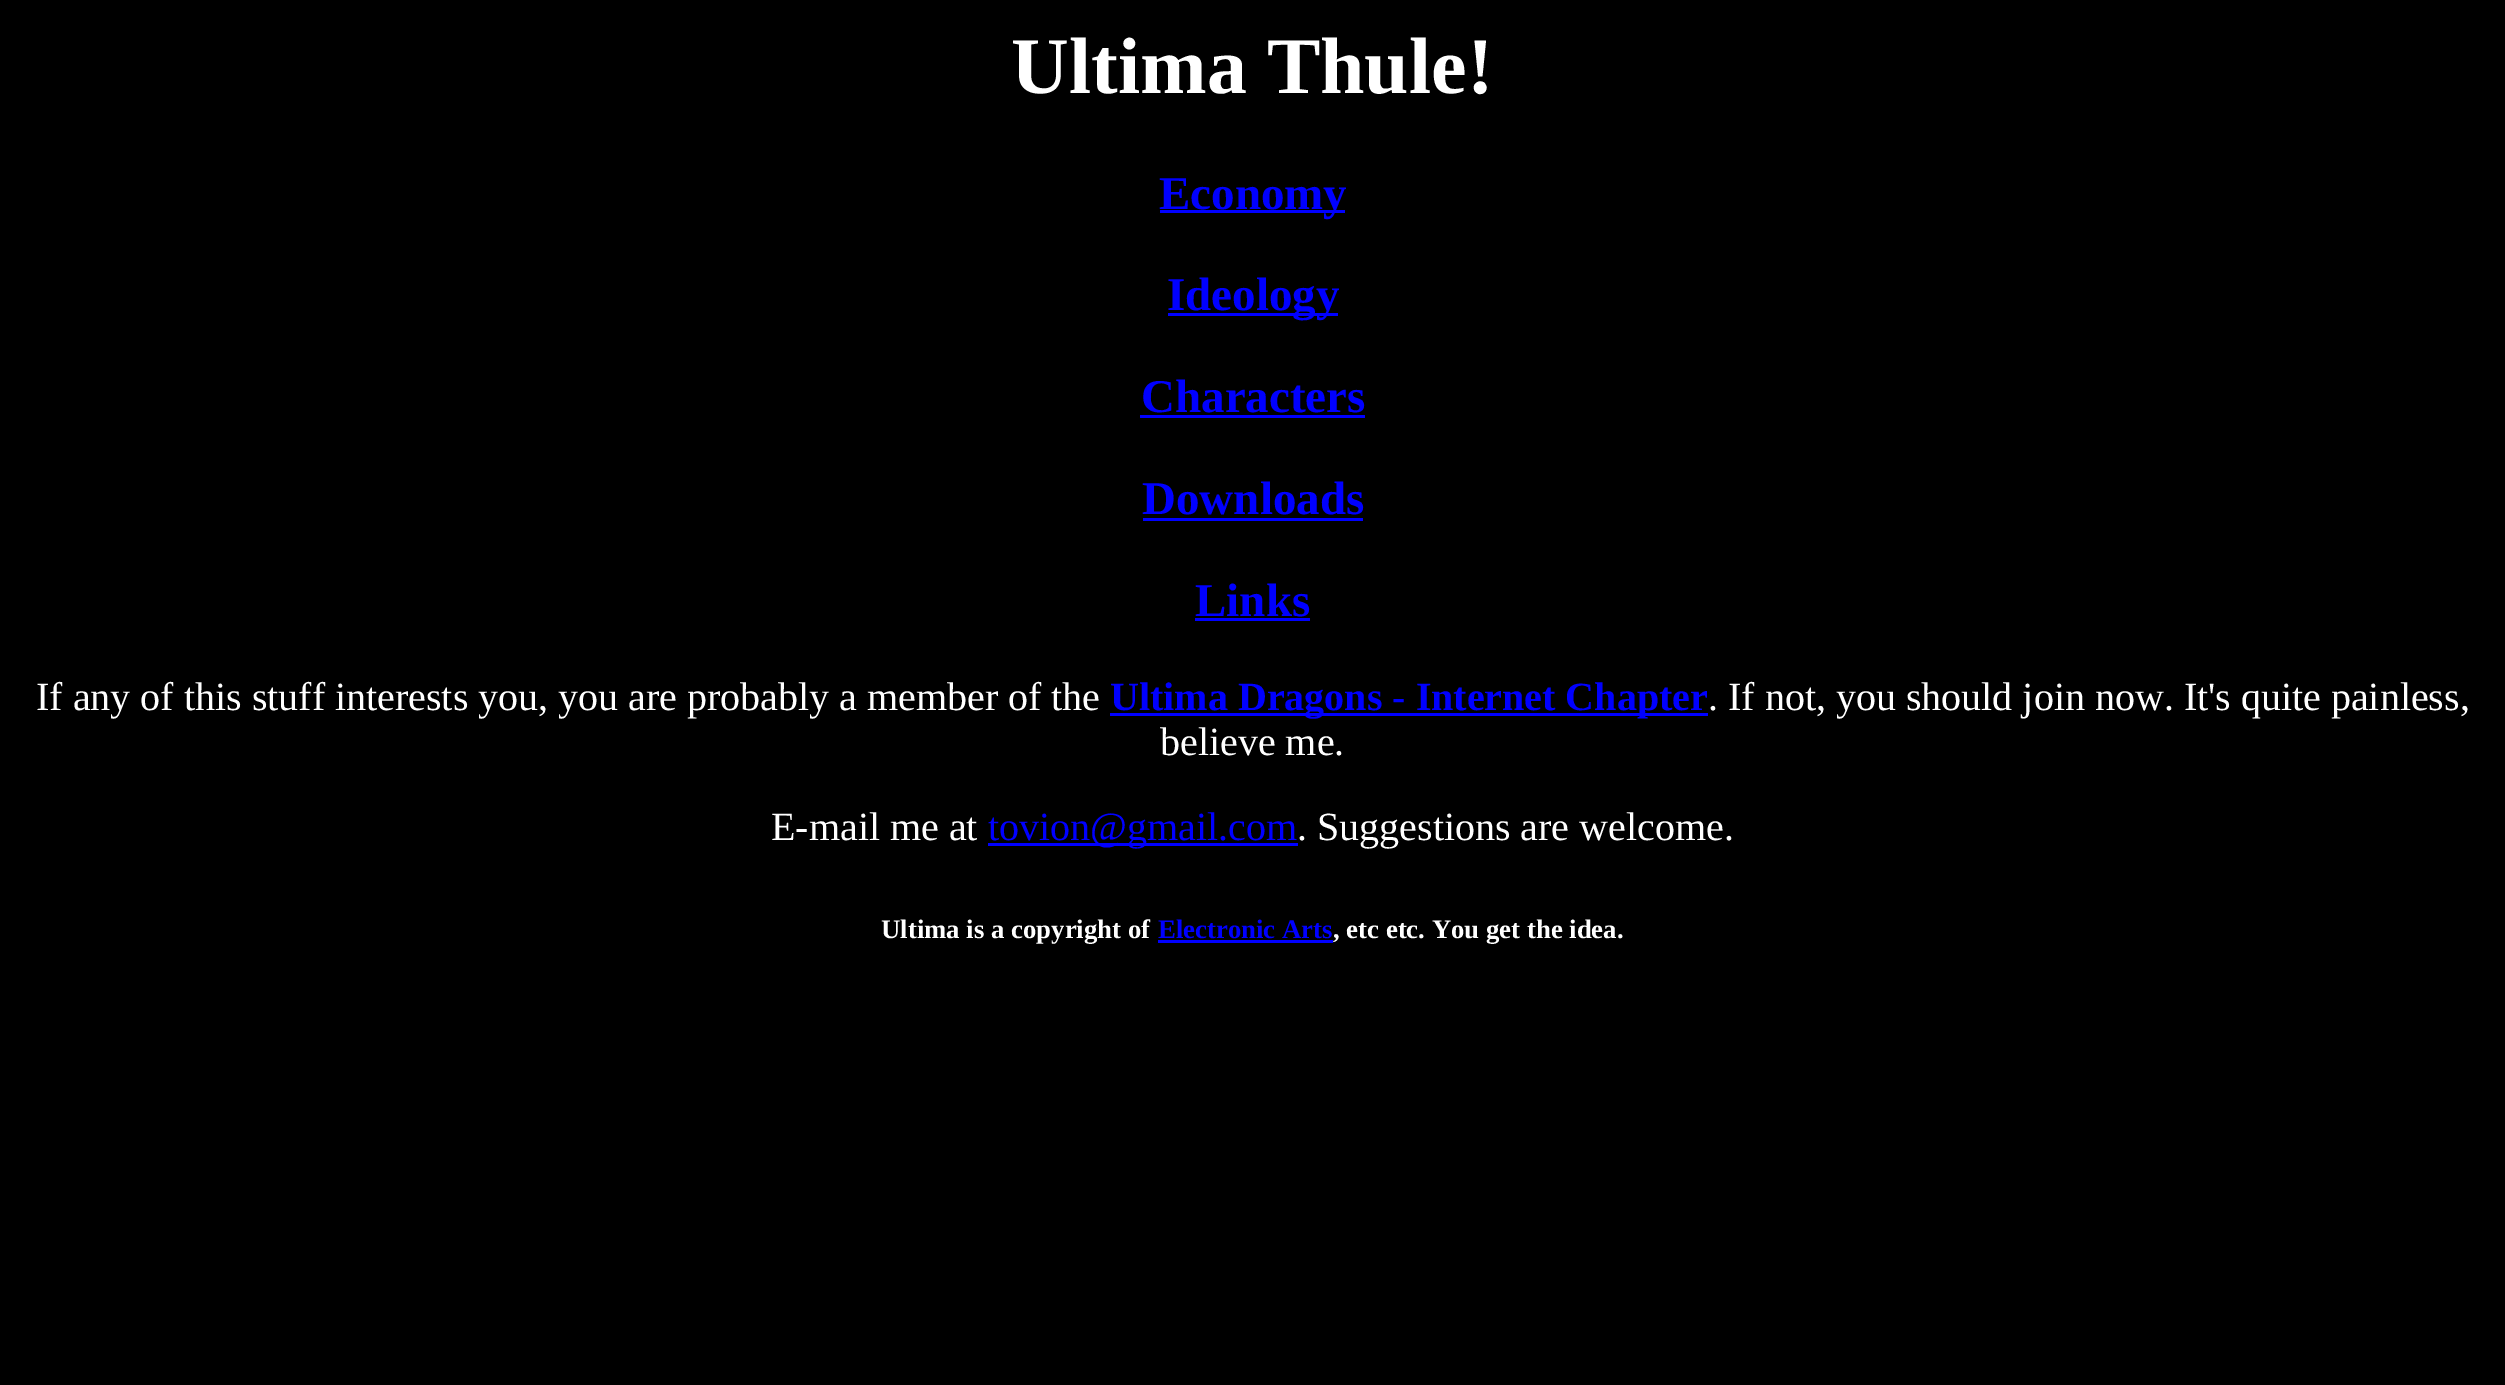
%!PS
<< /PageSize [2505 1385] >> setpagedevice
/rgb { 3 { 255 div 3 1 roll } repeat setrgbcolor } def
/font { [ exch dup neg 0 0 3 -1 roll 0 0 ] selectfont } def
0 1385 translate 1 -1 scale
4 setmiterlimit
0 0 0 rgb
0 0 2505 1385 rectfill
[
  [1160 210 185 3 0 0 255]
  [1168 313 170 3 0 0 255]
  [1140 415 225 3 0 0 255]
  [1143 518 220 3 0 0 255]
  [1195 618 115 3 0 0 255]
  [1110 713 598 3 0 0 255]
  [988 843 310 3 0 0 255]
  [1158 940 175 3 0 0 255]
] { aload pop rgb rectfill } forall
/LiberationSerif-Bold 80 font
255 255 255 rgb
1011 93 moveto (Ultima Thule!) show
/LiberationSerif-Bold 47 font
0 0 255 rgb
[
  [(Economy) 1159 209]
  [(Ideology) 1167 310]
  [(Characters) 1141 412]
  [(Downloads) 1142 514]
  [(Links) 1195 616]
] { aload pop moveto show } forall
/LiberationSerif-Regular 40 font
255 255 255 rgb
36 710 moveto (If any of this stuff interests you, you are probably a member of the) show
/LiberationSerif-Bold 40 font
0 0 255 rgb
1110 710 moveto (Ultima Dragons - Internet Chapter) show
/LiberationSerif-Regular 40 font
255 255 255 rgb
[
  [(. If not, you should join now. It's quite painless,) 1708 710]
  [(believe me.) 1160 755]
  [(E-mail me at) 771 840]
] { aload pop moveto show } forall
0 0 255 rgb
988 840 moveto (tovion@gmail.com) show
255 255 255 rgb
1297 840 moveto (. Suggestions are welcome.) show
/LiberationSerif-Bold 26.75 font
881 938 moveto (Ultima is a copyright of) show
0 0 255 rgb
1158 938 moveto (Electronic Arts) show
255 255 255 rgb
1333 938 moveto (, etc etc. You get the idea.) show
showpage
